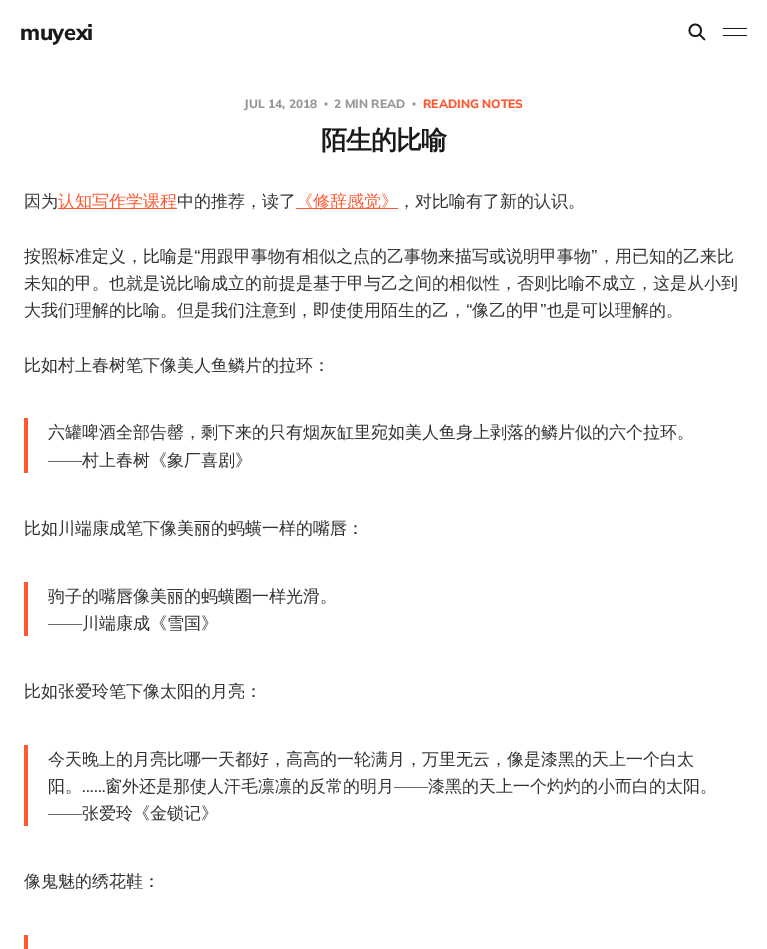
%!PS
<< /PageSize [767 949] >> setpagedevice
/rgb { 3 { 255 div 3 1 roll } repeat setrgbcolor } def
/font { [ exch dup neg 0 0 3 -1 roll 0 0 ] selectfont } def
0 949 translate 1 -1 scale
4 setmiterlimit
255 255 255 rgb
0 0 767 949 rectfill
26 26 26 rgb
1.7 setlinewidth
1 setlinecap
1 setlinejoin
704.5 39.5 moveto 699.5 34.5 lineto 701 30.5 moveto 701 38 689.5 38 689.5 30.5 curveto 689.5 22.5 701 22.5 701 30.5 curveto closepath stroke
[
  [723 28 24 1 21 23 26]
  [723 35 24 1 21 23 26]
  [58 208 119 1 255 87 47]
  [296 208 102 1 255 87 47]
  [24 418 4 55 255 87 47]
  [24 582 4 54 255 87 47]
  [24 745 4 81 255 87 47]
  [24 935 4 14 255 87 47]
] { aload pop rgb rectfill } forall
/Mulish-ExtraLight 22 font
26 26 26 rgb
20 40 moveto -0.5 0 (muyexi) ashow
/Mulish-ExtraLight 12 font
153 153 153 rgb
244 108 moveto (JUL 14, 2018) show
/LiberationSerif-Bold 12 font
324 108 moveto (•) show
/Mulish-ExtraLight 12 font
334 108 moveto (2 MIN READ) show
/LiberationSerif-Bold 12 font
412 108 moveto (•) show
/Mulish-ExtraLight 12 font
255 87 47 rgb
423 108 moveto (READING NOTES) show
/WenQuanYiZenHei-Bold 26 font
26 26 26 rgb
321 149 moveto -1 0 (陌生的比喻) ashow
/WenQuanYiZenHei-Medium 17 font
51 51 51 rgb
24 207 moveto (因为) show
255 87 47 rgb
58 207 moveto (认知写作学课程) show
51 51 51 rgb
177 207 moveto (中的推荐，读了) show
255 87 47 rgb
296 207 moveto (《修辞感觉》) show
51 51 51 rgb
398 207 moveto (，对比喻有了新的认识。) show
24 262 moveto (按照标准定义，比喻是) show
/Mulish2-ExtraLight 17 font
194 262 moveto (“) show
/WenQuanYiZenHei-Medium 17 font
200 262 moveto (用跟甲事物有相似之点的乙事物来描写或说明甲事物) show
/Mulish2-ExtraLight 17 font
591 262 moveto (”) show
/WenQuanYiZenHei-Medium 17 font
[
  [(，用已知的乙来比) 598 262]
  [(未知的甲。也就是说比喻成立的前提是基于甲与乙之间的相似性，否则比喻不成立，这是从小到) 24 289]
  [(大我们理解的比喻。但是我们注意到，即使使用陌生的乙，) 24 316]
] { aload pop moveto show } forall
/Mulish2-ExtraLight 17 font
466 316 moveto (“) show
/WenQuanYiZenHei-Medium 17 font
472 316 moveto (像乙的甲) show
/Mulish2-ExtraLight 17 font
540 316 moveto (”) show
/WenQuanYiZenHei-Medium 17 font
[
  [(也是可以理解的。) 547 316]
  [(比如村上春树笔下像美人鱼鳞片的拉环：) 24 371]
  [(六罐啤酒全部告罄，剩下来的只有烟灰缸里宛如美人鱼身上剥落的鳞片似的六个拉环。) 48 438]
] { aload pop moveto show } forall
/Mulish2-ExtraLight 17 font
48 466 moveto (——) show
/WenQuanYiZenHei-Medium 17 font
[
  [(村上春树《象厂喜剧》) 82 466]
  [(比如川端康成笔下像美丽的蚂蟥一样的嘴唇：) 24 534]
  [(驹子的嘴唇像美丽的蚂蟥圈一样光滑。) 48 602]
] { aload pop moveto show } forall
/Mulish2-ExtraLight 17 font
48 629 moveto (——) show
/WenQuanYiZenHei-Medium 17 font
[
  [(川端康成《雪国》) 82 629]
  [(比如张爱玲笔下像太阳的月亮：) 24 697]
  [(今天晚上的月亮比哪一天都好，高高的一轮满月，万里无云，像是漆黑的天上一个白太) 48 765]
  [(阳。) 48 792]
  [(窗外还是那使人汗毛凛凛的反常的明月) 105 792]
] { aload pop moveto show } forall
/Mulish2-ExtraLight 17 font
394 792 moveto (——) show
/WenQuanYiZenHei-Medium 17 font
428 792 moveto (漆黑的天上一个灼灼的小而白的太阳。) show
/Mulish2-ExtraLight 17 font
82 792 moveto (……) show
48 819 moveto (——) show
/WenQuanYiZenHei-Medium 17 font
82 819 moveto (张爱玲《金锁记》) show
24 887 moveto (像鬼魅的绣花鞋：) show
showpage
